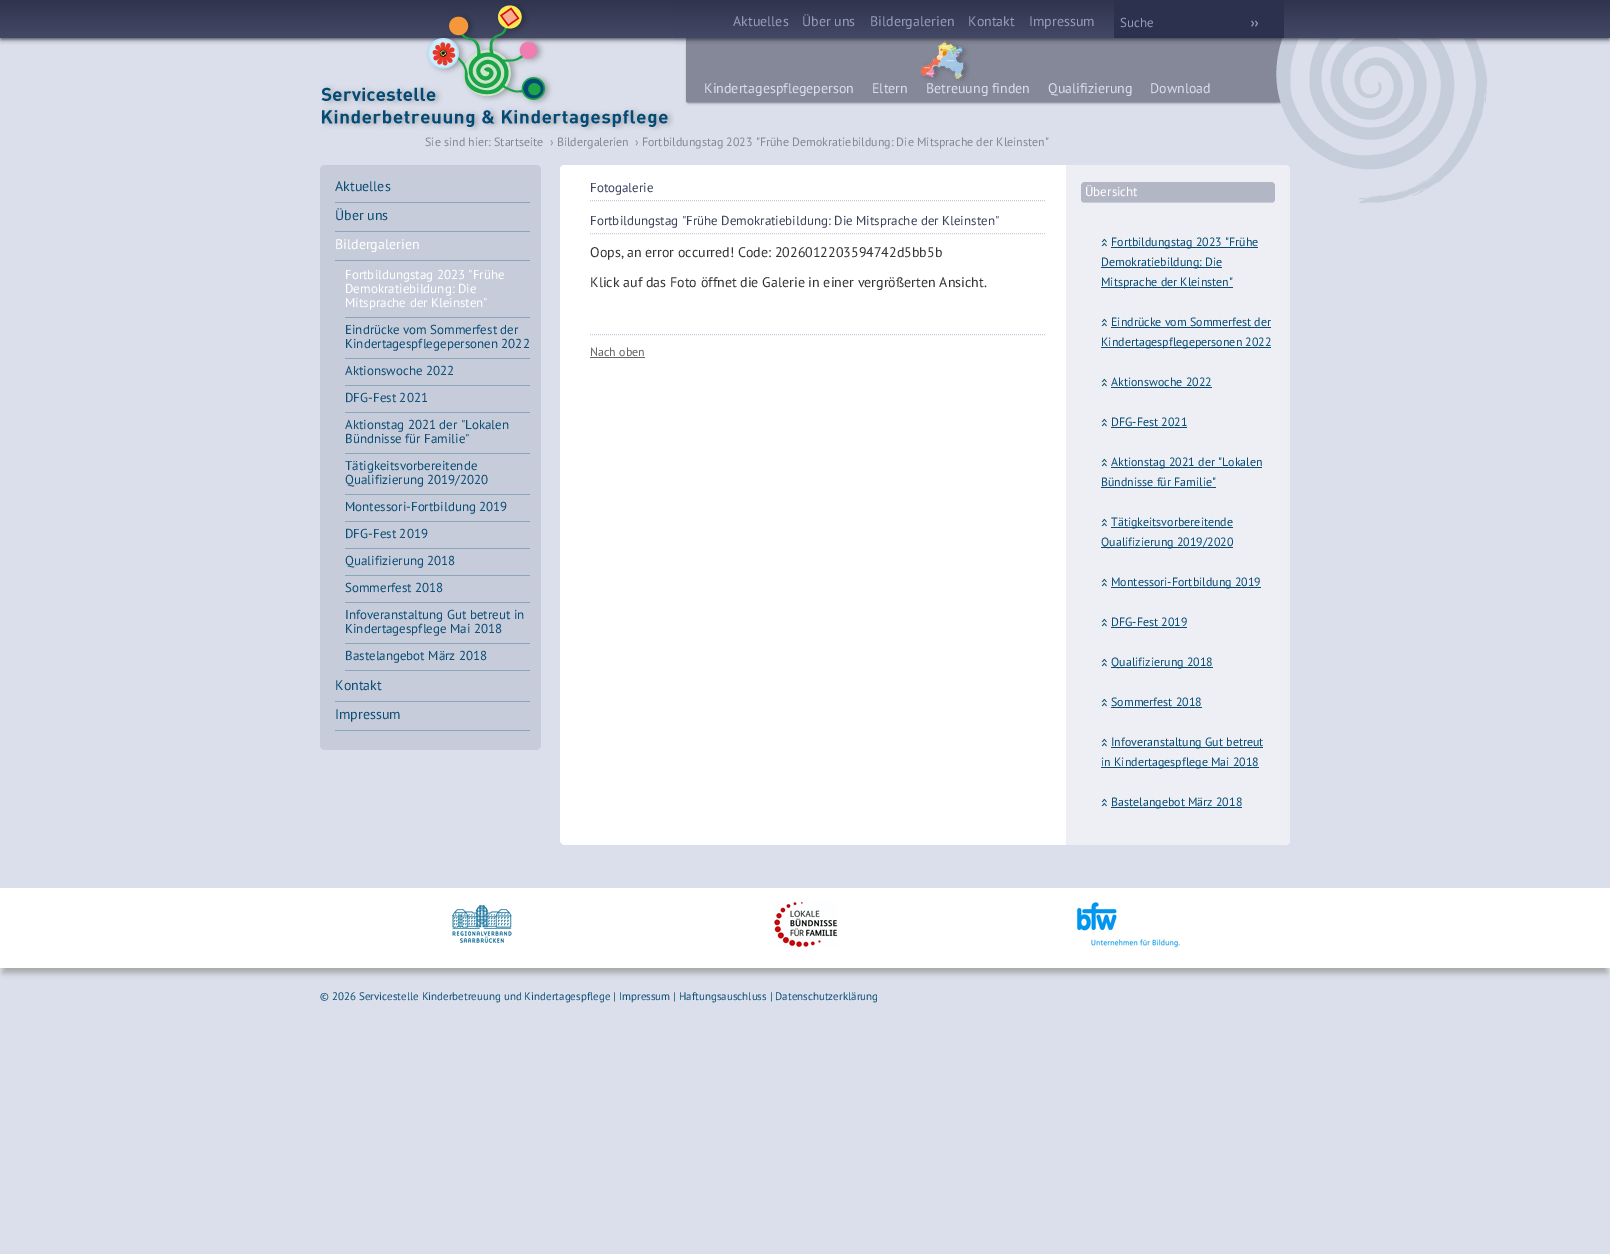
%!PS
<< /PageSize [1610 1254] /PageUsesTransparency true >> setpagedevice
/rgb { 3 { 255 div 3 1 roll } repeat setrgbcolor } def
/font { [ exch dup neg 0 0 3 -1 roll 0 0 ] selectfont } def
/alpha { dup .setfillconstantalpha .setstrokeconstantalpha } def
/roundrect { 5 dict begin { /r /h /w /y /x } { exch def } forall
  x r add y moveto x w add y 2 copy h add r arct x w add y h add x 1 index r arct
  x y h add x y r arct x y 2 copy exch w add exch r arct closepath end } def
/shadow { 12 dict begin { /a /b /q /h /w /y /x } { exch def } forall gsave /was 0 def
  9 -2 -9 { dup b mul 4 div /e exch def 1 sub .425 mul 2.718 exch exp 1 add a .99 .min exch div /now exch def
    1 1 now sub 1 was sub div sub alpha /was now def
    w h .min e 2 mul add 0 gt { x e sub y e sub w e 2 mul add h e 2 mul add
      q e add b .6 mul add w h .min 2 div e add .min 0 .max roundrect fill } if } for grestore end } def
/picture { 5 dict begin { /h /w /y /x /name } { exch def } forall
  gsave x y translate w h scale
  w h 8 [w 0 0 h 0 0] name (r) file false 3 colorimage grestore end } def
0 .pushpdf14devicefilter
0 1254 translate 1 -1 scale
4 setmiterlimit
218 223 235 rgb
0 0 1610 1254 rectfill
42 47 74 rgb
688 42 600 60 0 1.5 1 shadow
133 136 153 rgb
686 38 597 64 rectfill
(img/3.rgb) 919 40 51 43 picture
255 255 255 rgb
560 165 730 680 5 roundrect fill
237 239 244 rgb
1066 165 moveto 1285 165 lineto 1288 165 1290 167 1290 170 curveto 1290 840 lineto 1290 843 1288 845 1285 845 curveto 1066 845 lineto closepath fill
(img/4.rgb) 1276 38 212 166 picture
48 47 62 rgb
1 3 1608 36 0 2.5 1 shadow
gsave 0 0 moveto 1610 0 lineto 1610 38 lineto 0 38 lineto closepath clip newpath
<< /ShadingType 2 /ColorSpace /DeviceRGB /Coords [805 0 805 38] /Extend [true true] /Function << /FunctionType 2 /Domain [0 1] /C0 [0.188 0.204 0.306] /C1 [0.263 0.282 0.396] /N 1 >> >> shfill grestore
44 49 77 rgb
1114 0 170 38 rectfill
(img/1.rgb) 1251 20 7 7 picture
(img/2.rgb) 321 4 353 127 picture
198 204 218 rgb
320 165 221 585 5 roundrect fill
[
  [335 202 195 1 138 166 184]
  [335 231 195 1 138 166 184]
  [335 260 195 1 138 166 184]
  [345 317 185 1 138 166 184]
  [345 358 185 1 138 166 184]
  [345 385 185 1 138 166 184]
  [345 412 185 1 138 166 184]
  [345 453 185 1 138 166 184]
  [345 494 185 1 138 166 184]
  [345 521 185 1 138 166 184]
  [345 548 185 1 138 166 184]
  [345 575 185 1 138 166 184]
  [345 602 185 1 138 166 184]
  [345 643 185 1 138 166 184]
  [345 670 185 1 138 166 184]
  [335 701 195 1 138 166 184]
  [335 730 195 1 138 166 184]
] { aload pop rgb rectfill } forall
255 255 255 rgb
565 165 moveto 1066 165 lineto 1066 687 lineto 565 687 lineto 562 687 560 685 560 682 curveto 560 170 lineto 560 167 562 165 565 165 curveto closepath fill
198 204 218 rgb
[1 1] 0 setdash
590 200.5 moveto 1046 200.5 lineto stroke
590 233.5 moveto 1046 233.5 lineto stroke
590 334.5 moveto 1046 334.5 lineto stroke
102 102 102 rgb
590 357 55 1 rectfill
179 182 196 rgb
1081 182 194 21 4 roundrect fill
198 204 218 rgb
1083 202 190 1 rectfill
(img/5.rgb) 1101 238 6 9 picture
[
  [1111 247 147 1 12 77 117]
  [1101 267 121 1 12 77 117]
  [1101 287 132 1 12 77 117]
] { aload pop rgb rectfill } forall
(img/5.rgb) 1101 318 6 9 picture
1111 327 160 1 rectfill
1101 347 170 1 rectfill
(img/5.rgb) 1101 378 6 9 picture
1111 387 101 1 rectfill
(img/5.rgb) 1101 418 6 9 picture
1111 427 76 1 rectfill
(img/5.rgb) 1101 458 6 9 picture
1111 467 151 1 rectfill
1101 487 115 1 rectfill
(img/5.rgb) 1101 518 6 9 picture
1111 527 122 1 rectfill
1101 547 132 1 rectfill
(img/5.rgb) 1101 578 6 9 picture
1111 587 150 1 rectfill
(img/5.rgb) 1101 618 6 9 picture
1111 627 76 1 rectfill
(img/5.rgb) 1101 658 6 9 picture
1111 667 102 1 rectfill
(img/5.rgb) 1101 698 6 9 picture
1111 707 91 1 rectfill
(img/5.rgb) 1101 738 6 9 picture
1111 747 152 1 rectfill
1101 767 158 1 rectfill
(img/5.rgb) 1101 798 6 9 picture
1111 807 131 1 rectfill
166 166 166 rgb
3 899 1604 74 0 3 1 shadow
255 255 255 rgb
0 888 1610 80 rectfill
(img/6.rgb) 452 905 60 38 picture
(img/7.rgb) 774 902 64 45 picture
(img/8.rgb) 1077 902 103 46 picture
/PTSans-Regular 14 font
150 155 188 rgb
[
  [(Aktuelles) 733 26]
  [(Über uns) 802 26]
  [(Bildergalerien) 870 26]
  [(Kontakt) 968 26]
  [(Impressum) 1029 26]
] { aload pop moveto show } forall
/PTSans-Regular 13 font
1120 27 moveto (Suche) show
/PTSans-Regular 14 font
218 221 235 rgb
[
  [(Kindertagespflegeperson) 704 93]
  [(Eltern) 872 93]
  [(Betreuung finden) 926 93]
  [(Qualifizierung) 1048 93]
  [(Download) 1150 93]
] { aload pop moveto show } forall
/PTSans-Regular 12 font
133 136 153 rgb
[
  [(Sie sind hier: Startseite) 425 146]
  [(› Bildergalerien) 550 146]
  [(› Fortbildungstag 2023 "Frühe Demokratiebildung: Die Mitsprache der Kleinsten") 635 146]
] { aload pop moveto show } forall
/PTSans-Regular 14 font
12 77 117 rgb
335 191 moveto (Aktuelles) show
335 220 moveto (Über uns) show
255 255 255 rgb
335 249 moveto (Bildergalerien) show
/PTSans-Regular 13 font
[
  [(Fortbildungstag 2023 "Frühe) 345 279]
  [(Demokratiebildung: Die) 345 293]
  [(Mitsprache der Kleinsten") 345 307]
] { aload pop moveto show } forall
12 77 117 rgb
[
  [(Eindrücke vom Sommerfest der) 345 334]
  [(Kindertagespflegepersonen 2022) 345 348]
  [(Aktionswoche 2022) 345 375]
  [(DFG-Fest 2021) 345 402]
  [(Aktionstag 2021 der "Lokalen) 345 429]
  [(Bündnisse für Familie") 345 443]
  [(Tätigkeitsvorbereitende) 345 470]
  [(Qualifizierung 2019/2020) 345 484]
  [(Montessori-Fortbildung 2019) 345 511]
  [(DFG-Fest 2019) 345 538]
  [(Qualifizierung 2018) 345 565]
  [(Sommerfest 2018) 345 592]
  [(Infoveranstaltung Gut betreut in) 345 619]
  [(Kindertagespflege Mai 2018) 345 633]
  [(Bastelangebot März 2018) 345 660]
] { aload pop moveto show } forall
/PTSans-Regular 14 font
335 690 moveto (Kontakt) show
335 719 moveto (Impressum) show
/PTSans-Regular 13 font
60 65 93 rgb
590 192 moveto (Fotogalerie) show
590 225 moveto (Fortbildungstag "Frühe Demokratiebildung: Die Mitsprache der Kleinsten") show
/PTSans-Regular 14 font
51 51 51 rgb
590 257 moveto (Oops, an error occurred! Code: 2026012203594742d5bb5b) show
590 287 moveto (Klick auf das Foto öffnet die Galerie in einer vergrößerten Ansicht.) show
/PTSans-Regular 12 font
102 102 102 rgb
590 356 moveto (Nach oben) show
/PTSans-Regular 13 font
255 255 255 rgb
1085 196 moveto (Übersicht) show
/PTSans-Regular 12 font
12 77 117 rgb
[
  [(Fortbildungstag 2023 "Frühe) 1111 246]
  [(Demokratiebildung: Die) 1101 266]
  [(Mitsprache der Kleinsten") 1101 286]
  [(Eindrücke vom Sommerfest der) 1111 326]
  [(Kindertagespflegepersonen 2022) 1101 346]
  [(Aktionswoche 2022) 1111 386]
  [(DFG-Fest 2021) 1111 426]
  [(Aktionstag 2021 der "Lokalen) 1111 466]
  [(Bündnisse für Familie") 1101 486]
  [(Tätigkeitsvorbereitende) 1111 526]
  [(Qualifizierung 2019/2020) 1101 546]
  [(Montessori-Fortbildung 2019) 1111 586]
  [(DFG-Fest 2019) 1111 626]
  [(Qualifizierung 2018) 1111 666]
  [(Sommerfest 2018) 1111 706]
  [(Infoveranstaltung Gut betreut) 1111 746]
  [(in Kindertagespflege Mai 2018) 1101 766]
  [(Bastelangebot März 2018) 1111 806]
] { aload pop moveto show } forall
/PTSans-Regular 11 font
320 1000 moveto (© 2026 Servicestelle Kinderbetreuung und Kindertagespflege | Impressum | Haftungsauschluss | Datenschutzerklärung) show
.poppdf14devicefilter showpage
